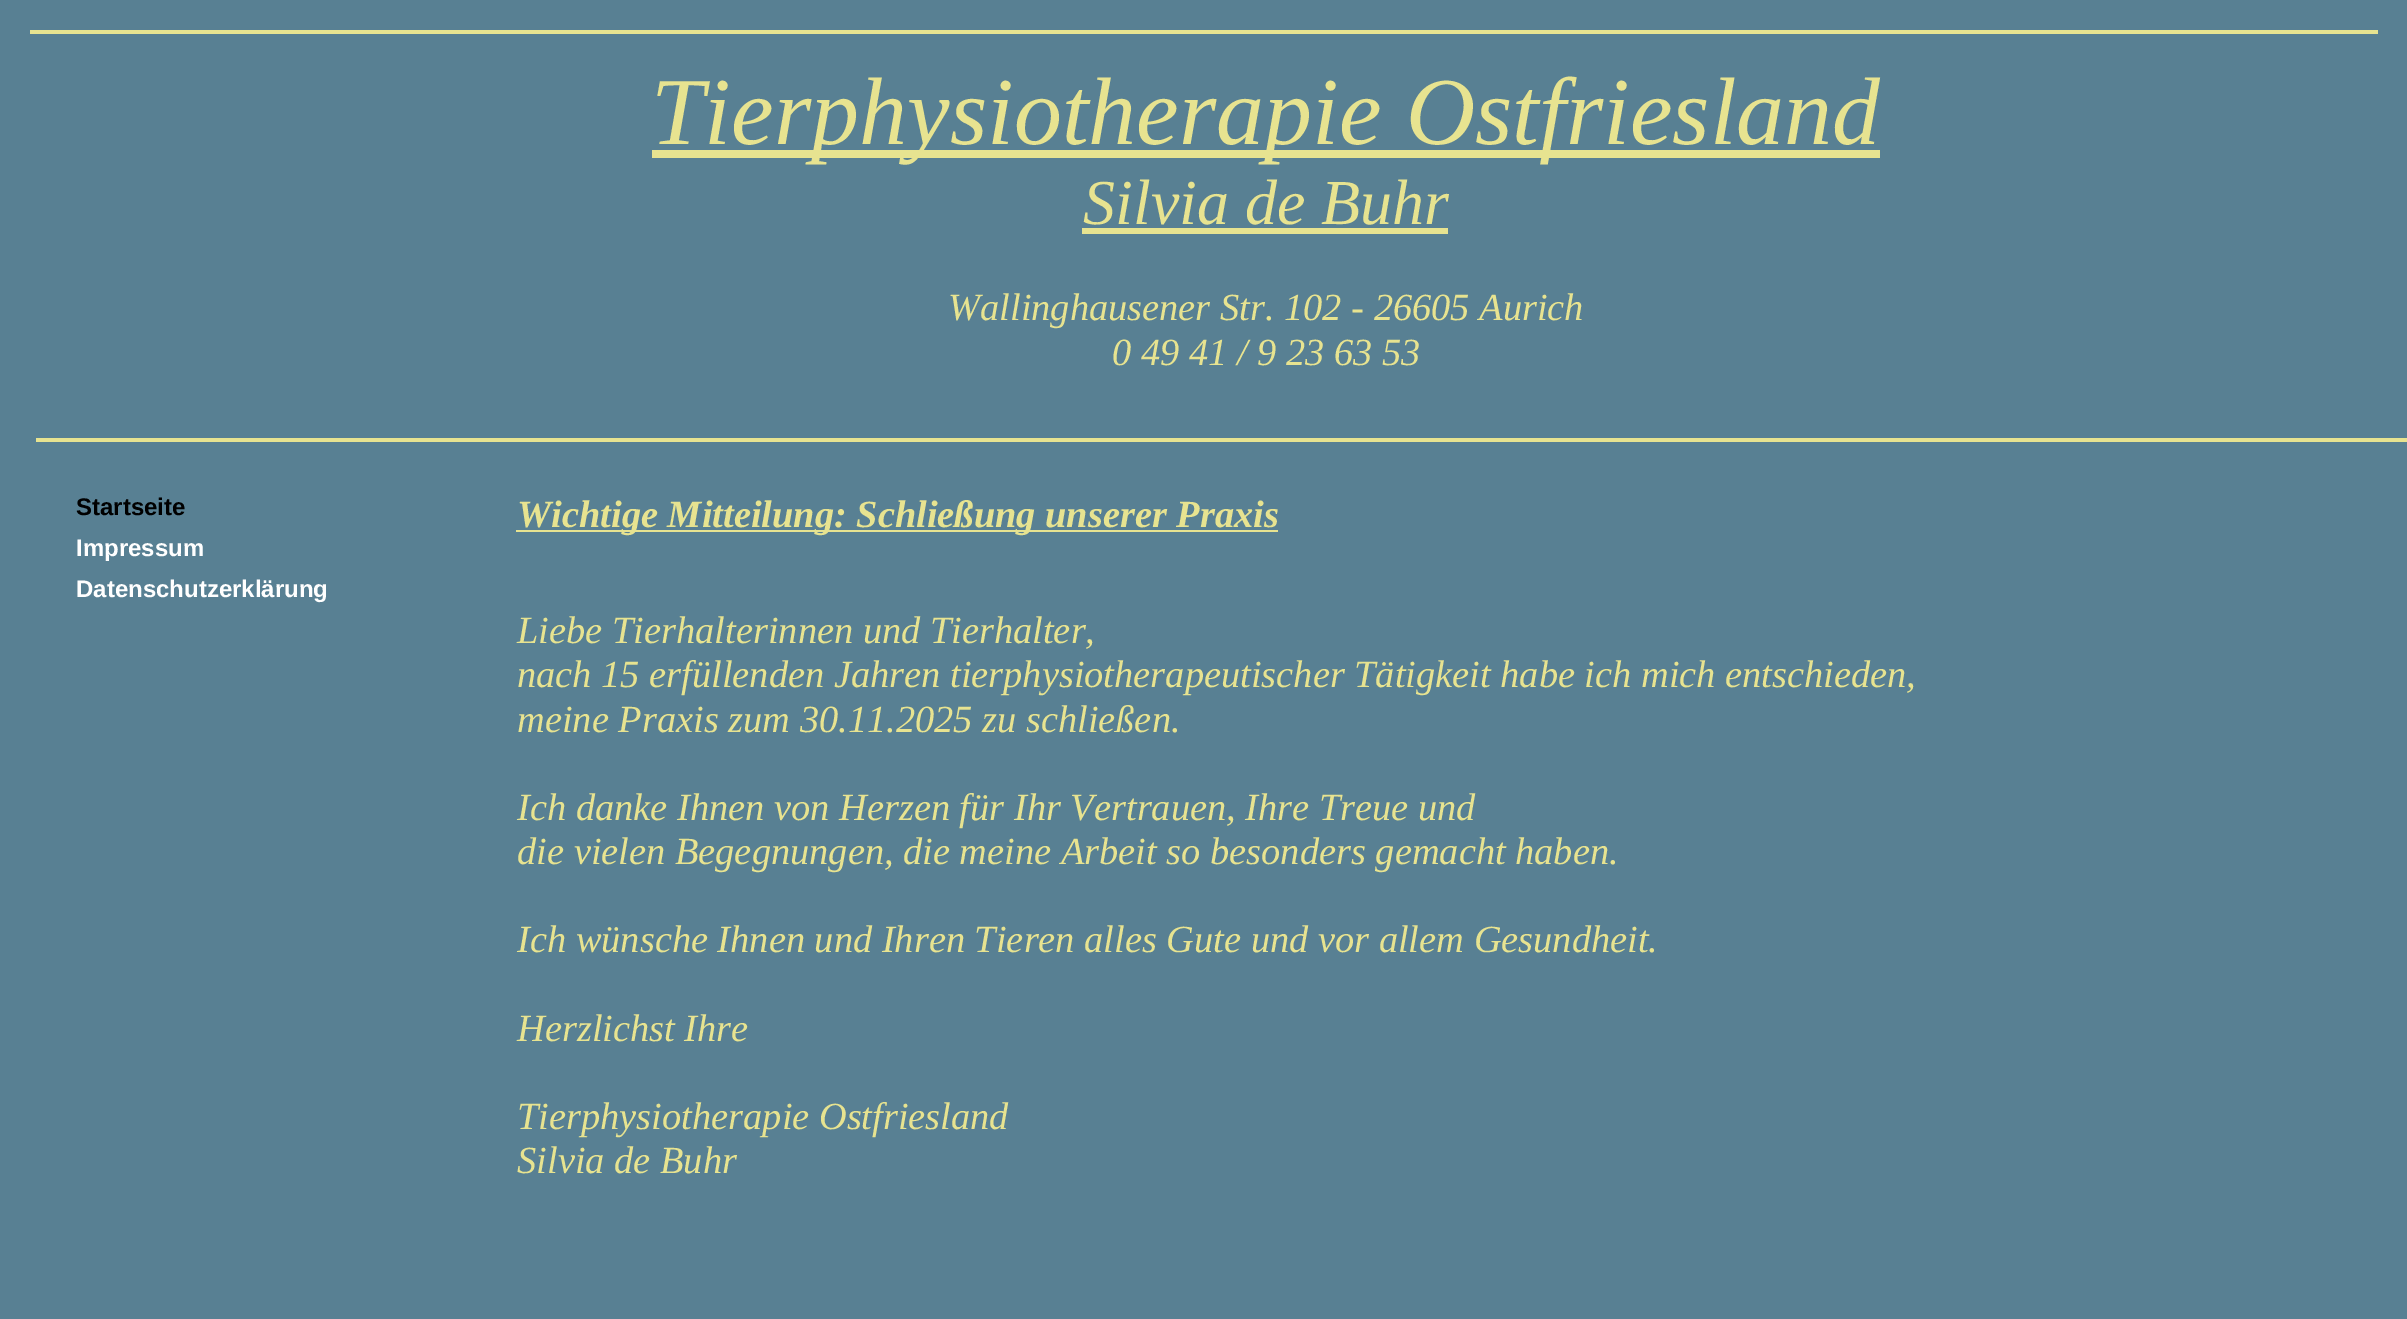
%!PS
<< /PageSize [2407 1319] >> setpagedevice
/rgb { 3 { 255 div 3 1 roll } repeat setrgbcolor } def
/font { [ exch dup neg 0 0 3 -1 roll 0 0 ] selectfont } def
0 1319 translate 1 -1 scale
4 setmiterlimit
88 128 147 rgb
0 0 2407 1319 rectfill
[
  [30 30 2348 4 231 227 144]
  [652 150 1228 8 231 227 144]
  [1082 228 366 6 231 227 144]
  [36 438 2371 4 231 227 144]
  [516 530 762 2 231 227 144]
] { aload pop rgb rectfill } forall
/LiberationSerif-Italic 96 font
651 144 moveto (Tierphysiotherapie Ostfriesland) show
/LiberationSerif-Italic 64 font
1083 224 moveto (Silvia de Buhr) show
/LiberationSerif-Italic 38.4 font
948 320 moveto (Wallinghausener Str. 102 - 26605 Aurich) show
1112 365 moveto (0 49 41 / 9 23 63 53) show
/LiberationSans-Bold 24 font
0 0 0 rgb
76 515 moveto (Startseite) show
255 255 255 rgb
76 556 moveto (Impressum) show
76 597 moveto (Datenschutzerklärung) show
/LiberationSerif-BoldItalic 38.4 font
231 227 144 rgb
517 527 moveto (Wichtige Mitteilung: Schließung unserer Praxis) show
/LiberationSerif-Italic 38.4 font
[
  [(Liebe Tierhalterinnen und Tierhalter,) 517 643]
  [(nach 15 erfüllenden Jahren tierphysiotherapeutischer Tätigkeit habe ich mich entschieden,) 517 687]
  [(meine Praxis zum 30.11.2025 zu schließen.) 517 732]
  [(Ich danke Ihnen von Herzen für Ihr Vertrauen, Ihre Treue und) 517 820]
  [(die vielen Begegnungen, die meine Arbeit so besonders gemacht haben.) 517 864]
  [(Ich wünsche Ihnen und Ihren Tieren alles Gute und vor allem Gesundheit.) 517 952]
  [(Herzlichst Ihre) 517 1041]
  [(Tierphysiotherapie Ostfriesland) 517 1129]
  [(Silvia de Buhr) 517 1173]
] { aload pop moveto show } forall
showpage
